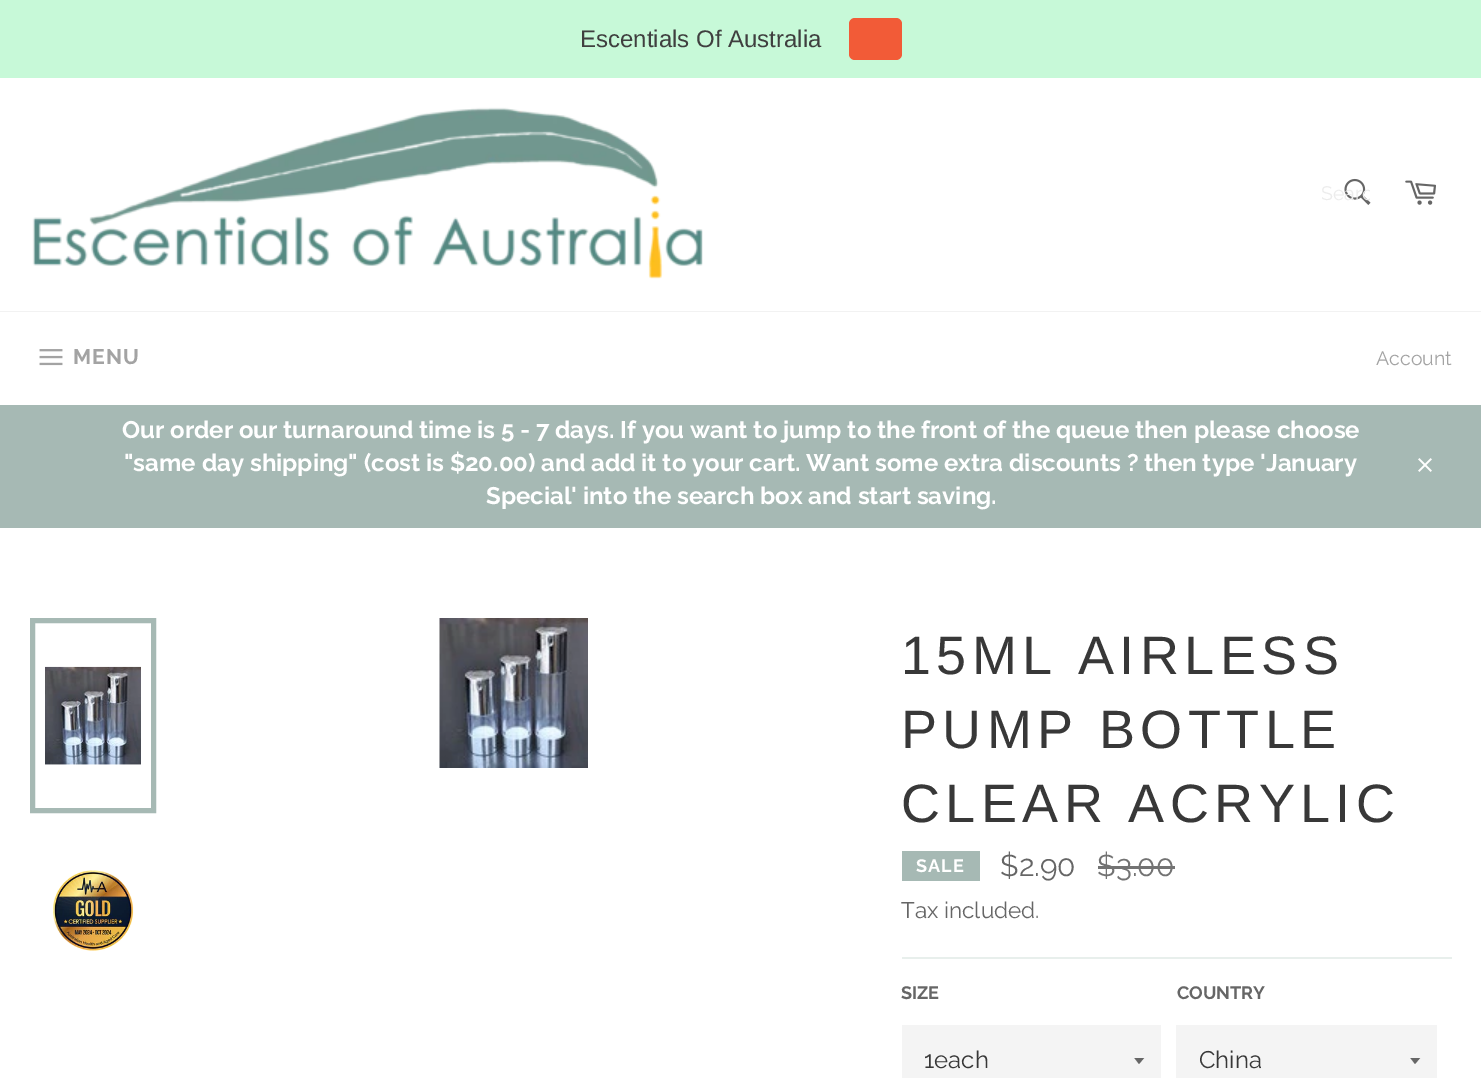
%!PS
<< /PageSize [1481 1078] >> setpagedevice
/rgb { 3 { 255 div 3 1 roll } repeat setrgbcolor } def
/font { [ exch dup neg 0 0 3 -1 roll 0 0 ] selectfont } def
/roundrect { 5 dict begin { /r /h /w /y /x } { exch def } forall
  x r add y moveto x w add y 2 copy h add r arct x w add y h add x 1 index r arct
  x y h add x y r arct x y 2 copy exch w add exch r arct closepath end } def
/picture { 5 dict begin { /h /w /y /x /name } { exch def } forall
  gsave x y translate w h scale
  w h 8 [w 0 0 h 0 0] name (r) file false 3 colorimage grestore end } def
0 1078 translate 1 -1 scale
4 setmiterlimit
255 255 255 rgb
0 0 1481 1078 rectfill
199 249 216 rgb
0 0 1481 78 rectfill
242 91 55 rgb
849 18 53 42 6 roundrect fill
(img/1.rgb) 32 107 671 172 picture
(img/2.rgb) 1344 178 27 27 picture
(img/3.rgb) 1405 180 31 25 picture
242 242 242 rgb
0 311 1481 1 rectfill
(img/4.rgb) 39 349 24 17 picture
166 185 180 rgb
0 405 1481 123 rectfill
(img/5.rgb) 1418 458 14 14 picture
(img/6.rgb) 45 666 96 99 picture
5 setlinewidth
32.5 620.5 121 190 rectstroke
(img/7.rgb) 53 870 81 81 picture
(img/8.rgb) 439 618 149 150 picture
[
  [902 851 78 30 166 185 180]
  [1098 866 77 3 115 115 115]
  [902 957 550 2 232 239 236]
  [902 1025 259 53 244 244 244]
] { aload pop rgb rectfill } forall
gsave
1134 1058 12 7 rectclip
102 102 102 rgb
1134 1057.5 moveto 1139 1064 lineto 1144.5 1057.5 lineto closepath fill
grestore
1176 1025 261 53 rectfill
gsave
1410 1058 12 7 rectclip
102 102 102 rgb
1410 1057.5 moveto 1415 1064 lineto 1420.5 1057.5 lineto closepath fill
grestore
/LiberationSans-Regular 24 font
63 63 63 rgb
580 47 moveto (Escentials Of Australia) show
gsave
1322 183 48 23 rectclip
/Raleway-Thin 19.5 font
236 236 236 rgb
1321 200 moveto (Searc) show
grestore
/Raleway-Bold 21 font
163 163 163 rgb
73 364 moveto 1 0 (MENU) ashow
/Raleway-Thin 19.5 font
1376 365 moveto (Account) show
/Raleway-Bold 24 font
255 255 255 rgb
[
  [(Our order our turnaround time is 5 - 7 days. If you want to jump to the front of the queue then please choose) 122 438]
  [("same day shipping" \(cost is $20.00\) and add it to your cart. Want some extra discounts ? then type 'January) 124 471]
  [(Special' into the search box and start saving.) 486 504]
] { aload pop moveto show } forall
/Arimo-Regular 54 font
56 56 56 rgb
901 674 moveto 5.4 0 (15ML AIRLESS) ashow
901 748 moveto 5.4 0 (PUMP BOTTLE) ashow
901 822 moveto 5.4 0 (CLEAR ACRYLIC) ashow
/Raleway-Bold 18 font
255 255 255 rgb
916 872 moveto 1 0 (SALE) ashow
/Raleway-Thin 30 font
102 102 102 rgb
1000 876 moveto ($2.90) show
115 115 115 rgb
1097 876 moveto ($3.00) show
/Raleway-Thin 22.5 font
102 102 102 rgb
901 918 moveto (Tax included.) show
/Raleway-Bold 18 font
901 999 moveto (SIZE) show
/Raleway-Thin 24 font
56 56 56 rgb
924 1068 moveto (1each) show
/Raleway-Bold 18 font
102 102 102 rgb
1177 999 moveto (COUNTRY) show
/Raleway-Thin 24 font
56 56 56 rgb
1199 1068 moveto (China) show
showpage
